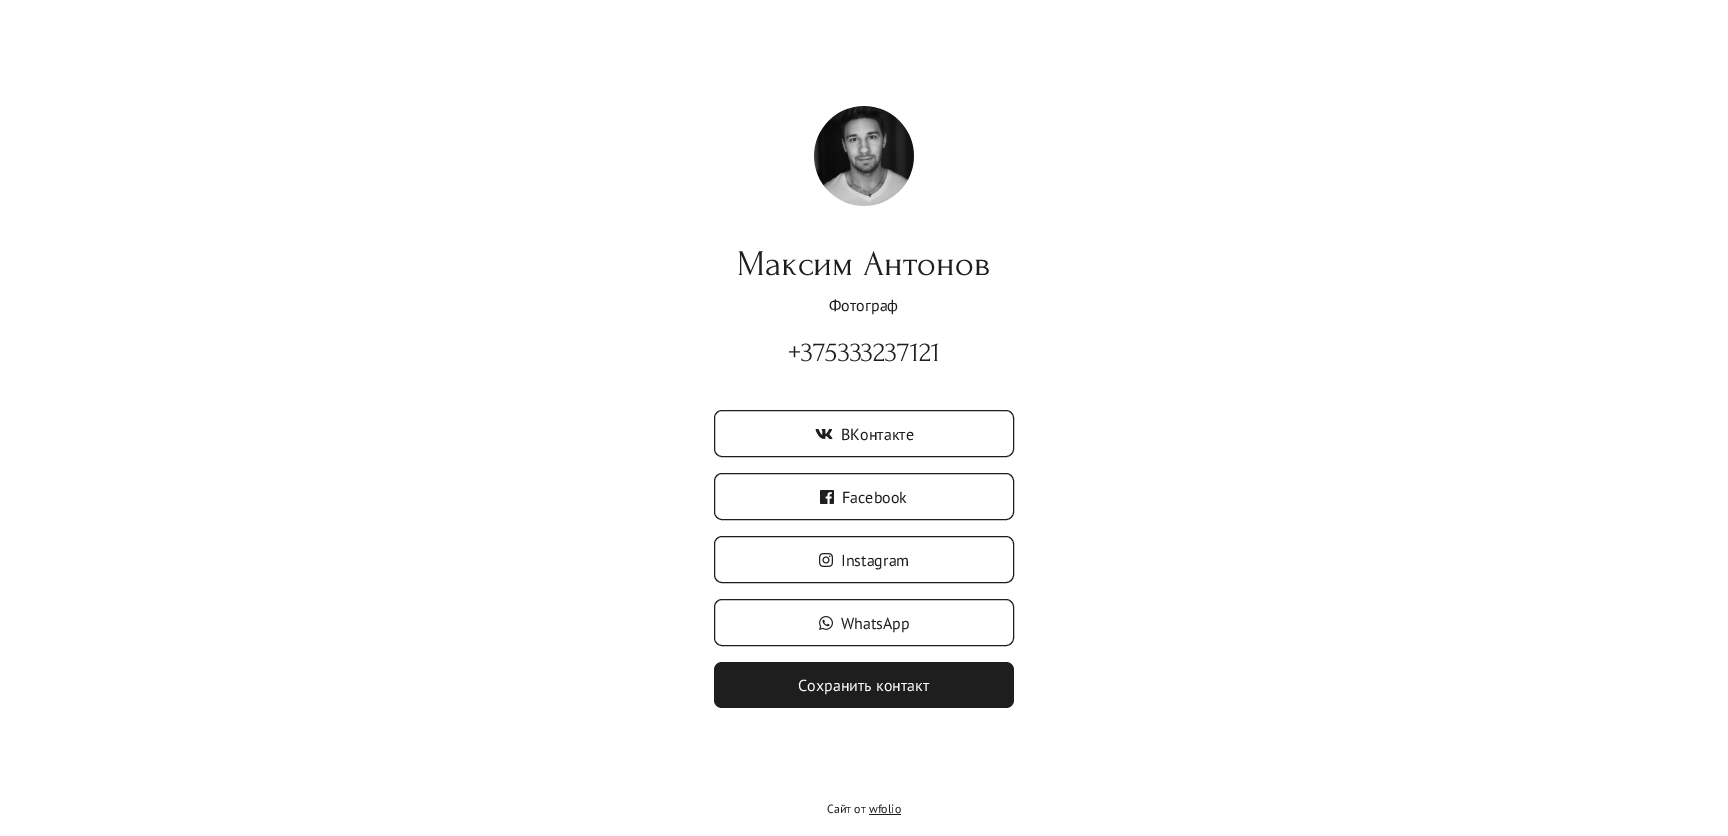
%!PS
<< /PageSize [1728 836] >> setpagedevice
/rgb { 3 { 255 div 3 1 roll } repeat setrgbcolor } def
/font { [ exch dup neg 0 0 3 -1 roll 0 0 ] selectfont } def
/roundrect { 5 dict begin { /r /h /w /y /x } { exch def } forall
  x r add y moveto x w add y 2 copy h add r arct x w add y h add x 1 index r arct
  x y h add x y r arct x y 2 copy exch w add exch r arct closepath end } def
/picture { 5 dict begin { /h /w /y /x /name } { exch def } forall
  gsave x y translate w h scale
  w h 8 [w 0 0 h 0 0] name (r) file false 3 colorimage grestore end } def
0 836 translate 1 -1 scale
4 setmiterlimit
255 255 255 rgb
0 0 1728 836 rectfill
(img/1.rgb) 814 106 100 100 picture
30 30 30 rgb
714.5 410.5 299 46 7.5 roundrect stroke
(img/2.rgb) 815 429 18 10 picture
714.5 473.5 299 46 7.5 roundrect stroke
(img/3.rgb) 820 490 14 14 picture
714.5 536.5 299 46 7.5 roundrect stroke
(img/4.rgb) 819 553 14 14 picture
714.5 599.5 299 46 7.5 roundrect stroke
(img/5.rgb) 819 616 14 14 picture
714 662 300 46 8 roundrect fill
869 814 32 1 rectfill
/Forum-Regular 36 font
737 275 moveto (Максим Антонов) show
/PTSans-Regular 16 font
829 311 moveto (Фотограф) show
/Forum-Regular 28 font
788 361 moveto (+375333237121) show
/PTSans-Regular 16 font
[
  [(ВКонтакте) 841 440]
  [(Facebook) 842 503]
  [(Instagram) 841 566]
  [(WhatsApp) 841 629]
] { aload pop moveto show } forall
255 255 255 rgb
798 691 moveto (Сохранить контакт) show
/PTSans-Regular 12 font
30 30 30 rgb
827 813 moveto (Сайт от wfolio) show
showpage
